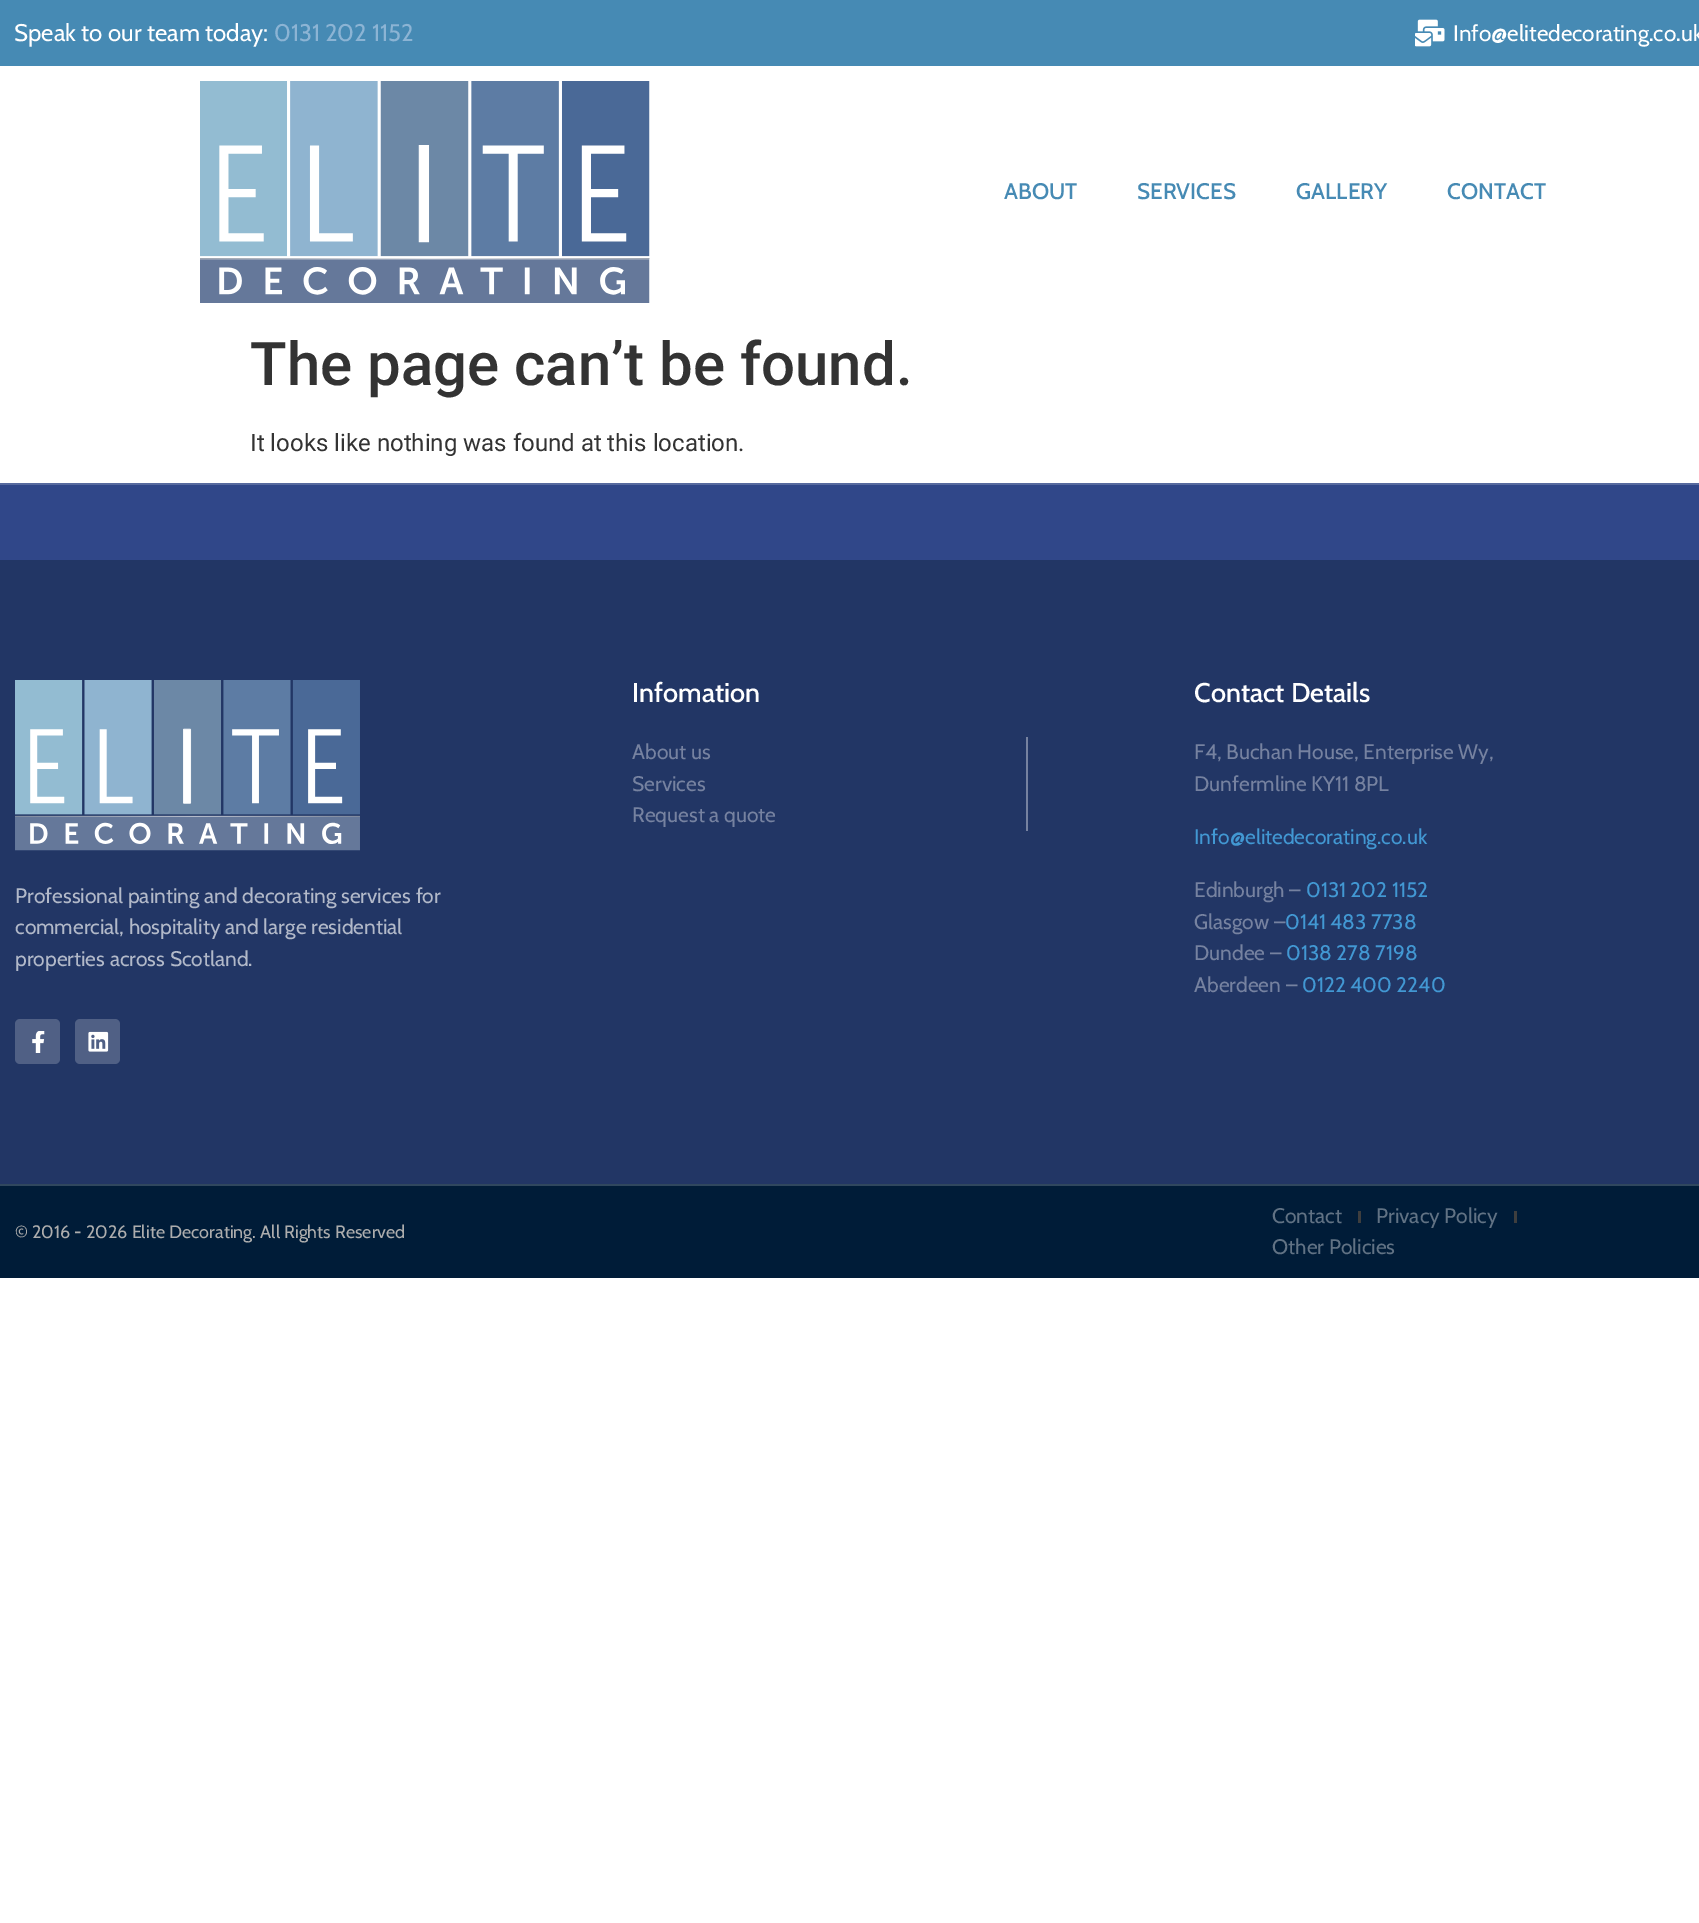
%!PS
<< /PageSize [1699 1923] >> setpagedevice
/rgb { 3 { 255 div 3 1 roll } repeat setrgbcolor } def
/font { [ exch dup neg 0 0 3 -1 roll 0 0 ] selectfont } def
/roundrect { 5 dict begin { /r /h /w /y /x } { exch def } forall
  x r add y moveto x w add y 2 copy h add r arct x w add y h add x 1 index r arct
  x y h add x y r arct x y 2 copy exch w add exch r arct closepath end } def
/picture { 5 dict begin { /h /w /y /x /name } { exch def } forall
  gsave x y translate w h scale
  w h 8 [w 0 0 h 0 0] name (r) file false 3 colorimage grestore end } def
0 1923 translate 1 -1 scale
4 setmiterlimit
255 255 255 rgb
0 0 1699 1923 rectfill
70 138 180 rgb
0 0 1699 66 rectfill
(img/1.rgb) 1415 19 30 28 picture
(img/2.rgb) 200 81 450 222 picture
[
  [0 485 1699 75 48 71 137]
  [0 483 1699 2 87 106 159]
  [0 560 1699 624 34 54 101]
] { aload pop rgb rectfill } forall
(img/3.rgb) 15 680 345 171 picture
80 96 133 rgb
15 1019 45 45 5 roundrect fill
(img/4.rgb) 32 1031 13 22 picture
75 1019 45 45 5 roundrect fill
(img/5.rgb) 88 1031 21 21 picture
[
  [1026 737 2 94 118 130 160]
  [0 1186 1699 92 0 28 56]
  [0 1184 1699 2 48 71 94]
  [1358 1211 3 12 62 62 62]
  [1514 1211 3 12 62 62 62]
] { aload pop rgb rectfill } forall
/Cabin-Regular 24 font
255 255 255 rgb
14 41 moveto (Speak to our team today:) show
140 180 212 rgb
274 41 moveto (0131 202 1152) show
/Cabin-Regular 22.5 font
255 255 255 rgb
1453 41 moveto (Info@elitedecorating.co.uk) show
/Cabin-Medium 22.5 font
70 138 180 rgb
[
  [(ABOUT) 1004 199]
  [(SERVICES) 1137 199]
  [(GALLERY) 1296 199]
  [(CONTACT) 1447 199]
] { aload pop moveto show } forall
/Roboto-Medium 60 font
51 51 51 rgb
250 385 moveto (The page can’t be found.) show
/Roboto-Regular 24 font
250 451 moveto (It looks like nothing was found at this location.) show
/Cabin-Regular 21 font
178 185 201 rgb
[
  [(Professional painting and decorating services for) 15 903]
  [(commercial, hospitality and large residential) 15 934]
  [(properties across Scotland.) 15 966]
] { aload pop moveto show } forall
/Cabin-Medium 27 font
255 255 255 rgb
632 702 moveto (Infomation) show
/Cabin-Regular 21 font
118 130 160 rgb
[
  [(About us) 632 759]
  [(Services) 632 791]
  [(Request a quote) 632 822]
] { aload pop moveto show } forall
/Cabin-Medium 27 font
255 255 255 rgb
1194 702 moveto (Contact Details) show
/Cabin-Regular 21 font
118 130 160 rgb
1194 759 moveto (F4, Buchan House, Enterprise Wy,) show
1194 791 moveto (Dunfermline KY11 8PL) show
66 152 211 rgb
1194 844 moveto (Info@elitedecorating.co.uk) show
118 130 160 rgb
1194 897 moveto (Edinburgh –) show
66 152 211 rgb
1306 897 moveto (0131 202 1152) show
118 130 160 rgb
1194 929 moveto (Glasgow –) show
66 152 211 rgb
1285 929 moveto (0141 483 7738) show
118 130 160 rgb
1194 960 moveto (Dundee –) show
66 152 211 rgb
1286 960 moveto (0138 278 7198) show
118 130 160 rgb
1194 992 moveto (Aberdeen –) show
66 152 211 rgb
1302 992 moveto (0122 400 2240) show
/Cabin-Regular 18 font
173 173 173 rgb
15 1238 moveto (© 2016 - 2026 Elite Decorating. All Rights Reserved) show
/Cabin-Regular 21 font
97 114 132 rgb
[
  [(Contact) 1272 1223]
  [(Privacy Policy) 1376 1223]
  [(Other Policies) 1272 1254]
] { aload pop moveto show } forall
showpage
